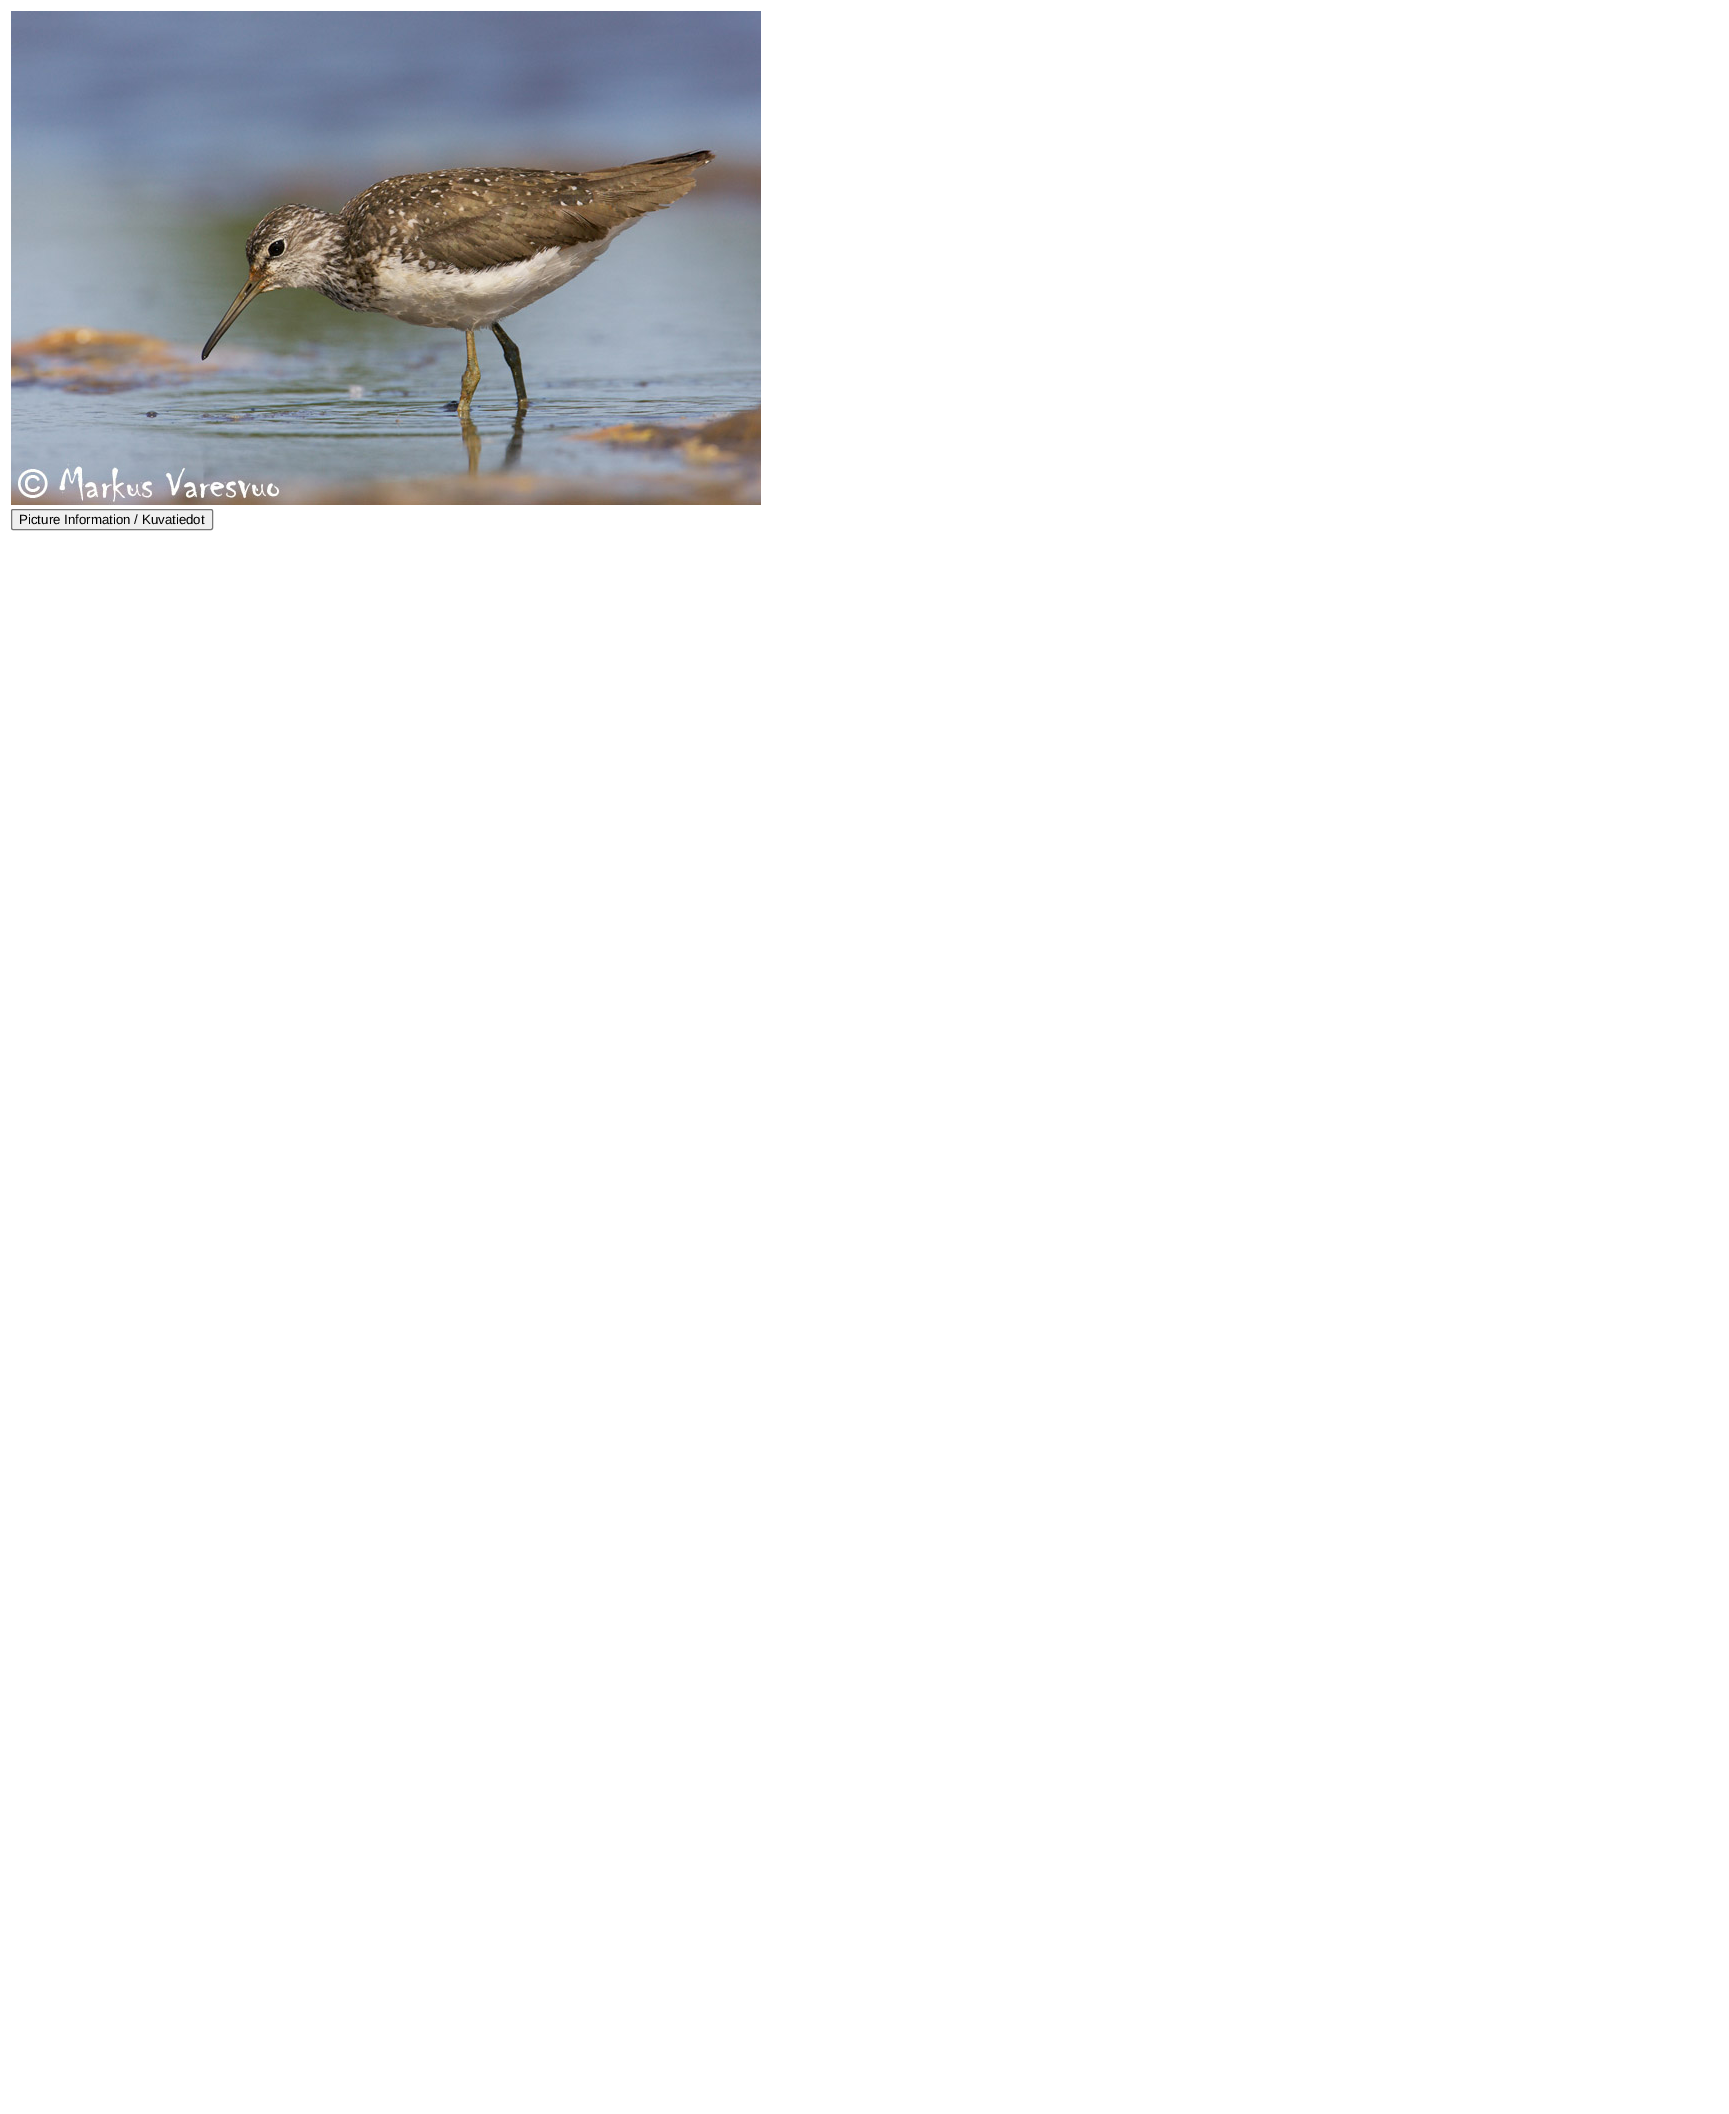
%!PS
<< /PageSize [1729 2114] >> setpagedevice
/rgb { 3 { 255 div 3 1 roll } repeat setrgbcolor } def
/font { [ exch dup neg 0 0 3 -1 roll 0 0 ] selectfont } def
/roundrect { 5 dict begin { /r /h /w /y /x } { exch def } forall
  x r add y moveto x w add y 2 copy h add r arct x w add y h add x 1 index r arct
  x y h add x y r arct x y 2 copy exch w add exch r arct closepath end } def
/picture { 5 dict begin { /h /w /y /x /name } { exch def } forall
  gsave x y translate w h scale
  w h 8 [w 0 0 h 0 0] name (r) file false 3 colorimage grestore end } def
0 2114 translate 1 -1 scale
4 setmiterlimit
255 255 255 rgb
0 0 1729 2114 rectfill
(img/1.rgb) 11 11 750 494 picture
239 239 239 rgb
11.5 509.5 201 20 1.5 roundrect gsave fill grestore
118 118 118 rgb
stroke
/LiberationSans-Regular 13.3 font
0 0 0 rgb
19 524 moveto (Picture Information / Kuvatiedot) show
showpage
